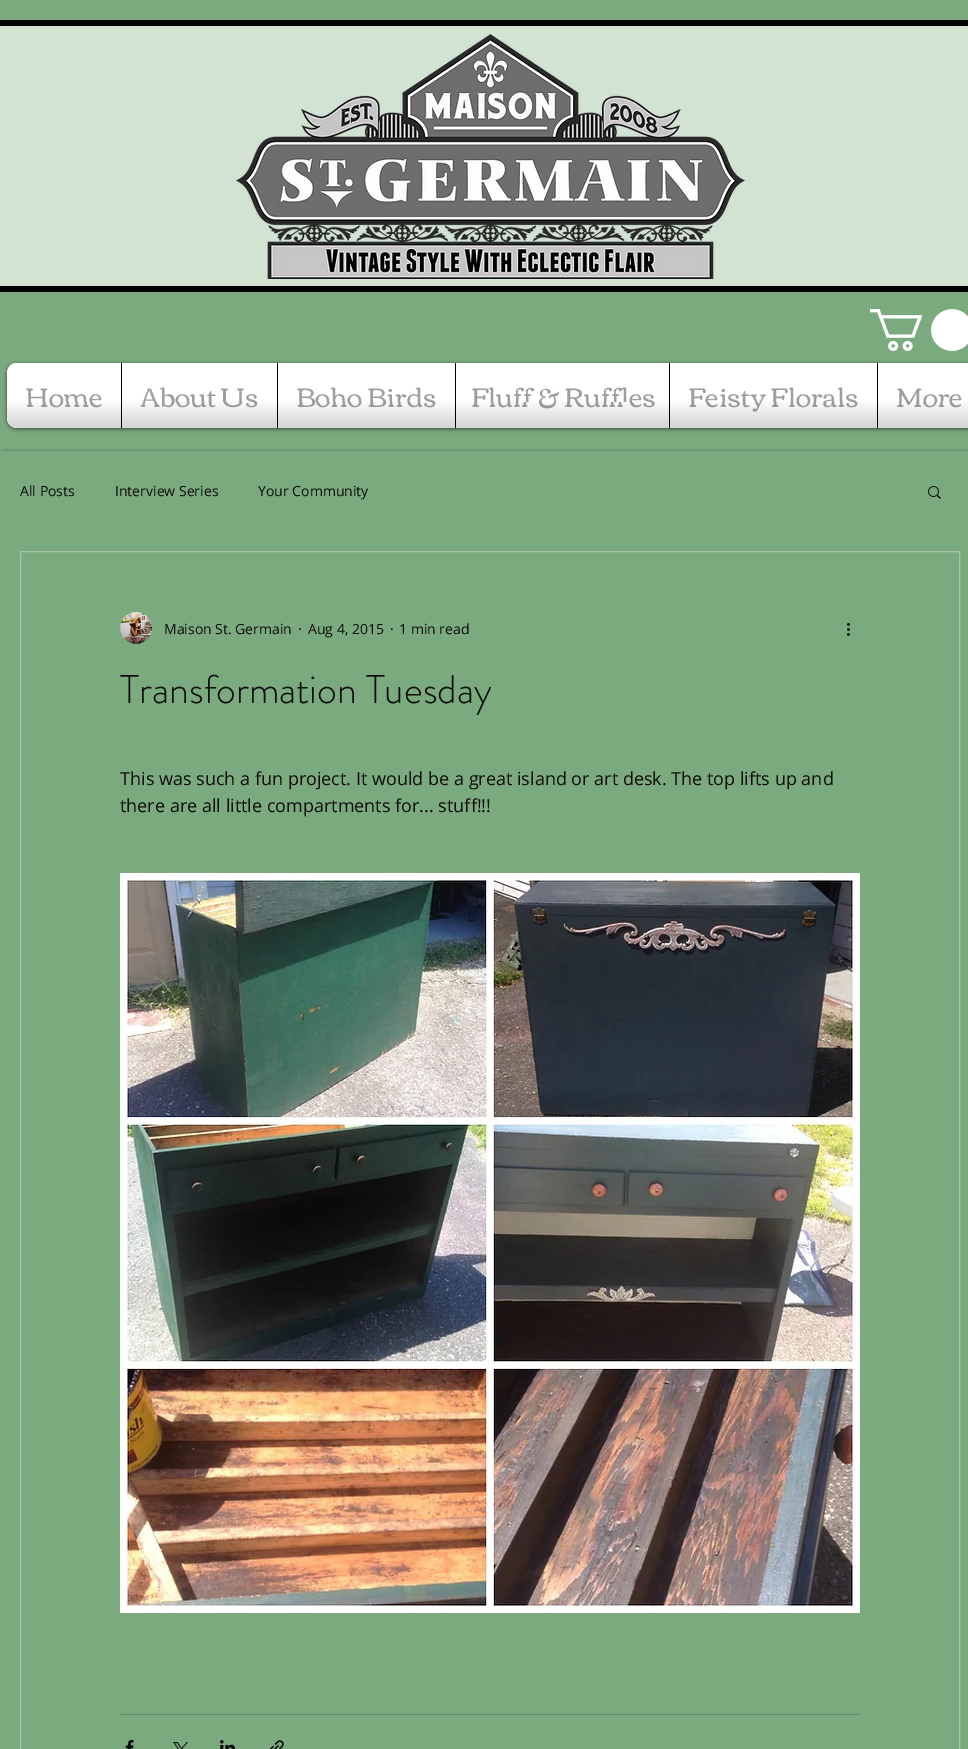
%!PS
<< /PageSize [968 1749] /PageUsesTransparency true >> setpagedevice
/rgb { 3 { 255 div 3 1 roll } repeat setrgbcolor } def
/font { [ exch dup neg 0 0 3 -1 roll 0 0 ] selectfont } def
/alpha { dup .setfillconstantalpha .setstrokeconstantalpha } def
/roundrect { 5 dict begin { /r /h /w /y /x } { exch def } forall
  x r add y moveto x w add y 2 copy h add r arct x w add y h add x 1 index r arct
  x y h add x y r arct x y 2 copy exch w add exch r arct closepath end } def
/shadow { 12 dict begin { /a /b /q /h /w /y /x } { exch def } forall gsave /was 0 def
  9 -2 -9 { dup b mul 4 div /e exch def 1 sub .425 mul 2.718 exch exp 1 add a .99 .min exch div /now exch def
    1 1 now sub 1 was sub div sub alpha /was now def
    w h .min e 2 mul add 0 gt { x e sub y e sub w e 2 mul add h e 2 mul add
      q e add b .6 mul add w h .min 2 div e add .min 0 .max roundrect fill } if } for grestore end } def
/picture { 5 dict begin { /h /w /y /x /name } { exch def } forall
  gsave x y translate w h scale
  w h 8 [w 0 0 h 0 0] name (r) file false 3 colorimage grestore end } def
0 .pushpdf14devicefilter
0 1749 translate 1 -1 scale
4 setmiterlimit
123 170 126 rgb
0 0 968 1749 rectfill
[
  [0 20 968 6 0 0 0]
  [0 286 968 6 0 0 0]
  [0 26 968 260 210 226 211]
] { aload pop rgb rectfill } forall
(img/1.rgb) 236 34 509 245 picture
(img/2.rgb) 870 309 98 42 picture
0 0 0 rgb
7 364 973 65 10 2 0.6 shadow
(img/3.rgb) 9 363 6 4 picture
(img/4.rgb) 7 418 10 10 picture
255 255 255 rgb
17 363 moveto 121 363 lineto 121 428 lineto 17 428 lineto 11.5 428 7 423.5 7 418 curveto 7 373 lineto 7 367.5 11.5 363 17 363 curveto closepath fill
0.05 alpha
[
  [27 389 20 3 255 255 255]
] { aload pop rgb rectfill } forall
1 alpha
[
  [122 363 155 65 255 255 255]
  [121 363 1 65 0 0 0]
] { aload pop rgb rectfill } forall
0.05 alpha
[
  [148 388 96 4 255 255 255]
] { aload pop rgb rectfill } forall
1 alpha
[
  [278 363 177 65 255 255 255]
  [277 363 1 65 0 0 0]
] { aload pop rgb rectfill } forall
0.05 alpha
[
  [298 388 122 4 255 255 255]
] { aload pop rgb rectfill } forall
1 alpha
[
  [456 363 213 65 255 255 255]
  [455 363 1 65 0 0 0]
] { aload pop rgb rectfill } forall
0.05 alpha
[
  [473 387 148 5 255 255 255]
] { aload pop rgb rectfill } forall
1 alpha
[
  [670 363 207 65 255 255 255]
  [669 363 1 65 0 0 0]
] { aload pop rgb rectfill } forall
0.05 alpha
[
  [690 388 152 4 255 255 255]
] { aload pop rgb rectfill } forall
1 alpha
[
  [878 363 90 65 255 255 255]
  [877 363 1 65 0 0 0]
] { aload pop rgb rectfill } forall
0.05 alpha
[
  [897 389 24 3 255 255 255]
] { aload pop rgb rectfill } forall
1 alpha
0 0 0 rgb
0 452 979 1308 5 2 0.6 shadow
123 170 126 rgb
0 451 968 1298 rectfill
(img/11.rgb) 928 486 13 13 picture
167 196 170 rgb
20.5 551.5 939 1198 rectstroke
(img/12.rgb) 120 612 32 32 picture
(img/13.rgb) 847 623 3 13 picture
(img/14.rgb) 120 873 740 740 picture
101 138 103 rgb
120 1714 740 1 rectfill
(img/15.rgb) 125 1740 9 9 picture
(img/16.rgb) 173 1742 15 7 picture
(img/17.rgb) 220 1740 15 9 picture
(img/18.rgb) 269 1740 15 9 picture
/Corben-Regular 27 font
158 158 158 rgb
25 407 moveto (Home) show
(img/5.rgb) 7 402 114 26 picture
140 407 moveto (About Us) show
(img/6.rgb) 122 402 155 26 picture
296 407 moveto (Boho Birds) show
(img/7.rgb) 278 402 177 26 picture
471 407 moveto (Fluff & Ruffles) show
(img/8.rgb) 456 402 213 26 picture
688 407 moveto (Feisty Florals) show
(img/9.rgb) 670 402 207 26 picture
896 407 moveto (More) show
(img/10.rgb) 878 402 90 26 picture
/OpenSans-Regular 14 font
12 12 12 rgb
[
  [(All Posts) 20 496]
  [(Interview Series) 115 496]
  [(Your Community) 258 496]
  [(Maison St. Germain) 164 634]
  [(·) 298 634]
  [(Aug 4, 2015) 308 634]
  [(·) 390 634]
  [(1 min read) 399 634]
] { aload pop moveto show } forall
/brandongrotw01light-Light 40 font
120 703 moveto (Transformation Tuesday) show
/OpenSans-Regular 18 font
120 785 moveto (This was such a fun project. It would be a great island or art desk. The top lifts up and) show
120 812 moveto (there are all little compartments for... stuff!!!) show
.poppdf14devicefilter showpage
